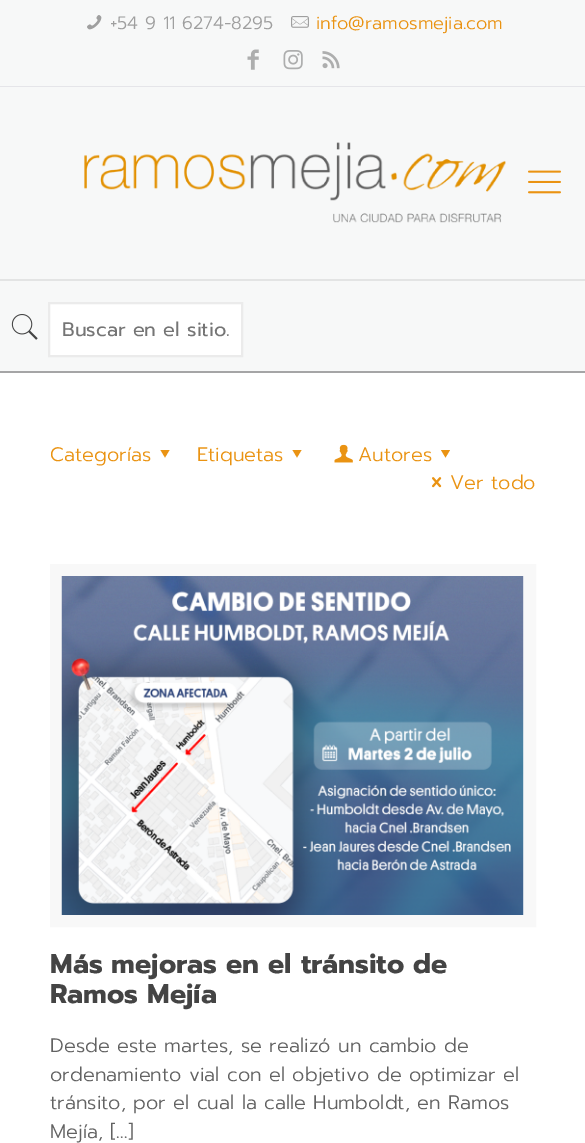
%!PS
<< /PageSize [585 1143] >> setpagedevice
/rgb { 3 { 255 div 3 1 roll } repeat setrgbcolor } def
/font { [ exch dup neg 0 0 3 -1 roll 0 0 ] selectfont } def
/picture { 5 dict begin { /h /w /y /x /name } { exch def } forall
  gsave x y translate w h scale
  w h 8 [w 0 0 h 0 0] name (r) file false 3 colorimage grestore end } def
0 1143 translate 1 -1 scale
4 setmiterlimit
255 255 255 rgb
0 0 585 1143 rectfill
247 248 248 rgb
0 0 585 86 rectfill
229 229 233 rgb
0 86 585 1 rectfill
(img/1.rgb) 87 15 15 15 picture
(img/2.rgb) 291 16 18 12 picture
(img/3.rgb) 247 49 12 21 picture
(img/4.rgb) 283 50 20 20 picture
(img/5.rgb) 322 51 18 18 picture
[
  [0 87 585 284 247 248 248]
  [0 371 585 2 165 165 166]
  [0 279 585 2 227 228 228]
] { aload pop rgb rectfill } forall
(img/6.rgb) 84 142 422 81 picture
(img/7.rgb) 528 170 33 24 picture
(img/8.rgb) 11 314 27 26 picture
255 255 255 rgb
49 303 moveto 242 303 lineto 242 356 lineto 49 356 lineto closepath gsave fill grestore
235 235 235 rgb
2 setlinewidth
stroke
234 147 18 rgb
169.5 450 moveto 165 457.5 lineto 160.5 450 lineto closepath fill
301.5 450 moveto 297 457.5 lineto 292.5 450 lineto closepath fill
(img/9.rgb) 334 444 19 19 picture
450 450 moveto 445.5 457.5 lineto 441 450 lineto closepath fill
(img/10.rgb) 432 477 10 11 picture
248 248 248 rgb
12 setlinewidth
56 570 474 351 rectstroke
(img/11.rgb) 61 576 463 339 picture
/Prompt-Light 18 font
159 159 159 rgb
110 29 moveto (+54 9 11 6274-8295) show
234 147 18 rgb
316 29 moveto (info@ramosmejia.com) show
/Prompt-Regular 19.5 font
117 117 117 rgb
62 336 moveto (Buscar en el sitio.) show
/Prompt-Light 19.5 font
234 147 18 rgb
[
  [(Categorías) 50 461]
  [(Etiquetas) 197 461]
  [(Autores) 358 461]
  [(Ver todo) 450 489]
] { aload pop moveto show } forall
/Prompt-Bold 27 font
68 68 68 rgb
50 973 moveto (Más mejoras en el tránsito de) show
50 1003 moveto (Ramos Mejía) show
/Prompt-Light 19.5 font
98 98 98 rgb
[
  [(Desde este martes, se realizó un cambio de) 50 1052]
  [(ordenamiento vial con el objetivo de optimizar el) 50 1081]
  [(tránsito, por el cual la calle Humboldt, en Ramos) 50 1109]
  [(Mejía, […]) 50 1138]
] { aload pop moveto show } forall
showpage
